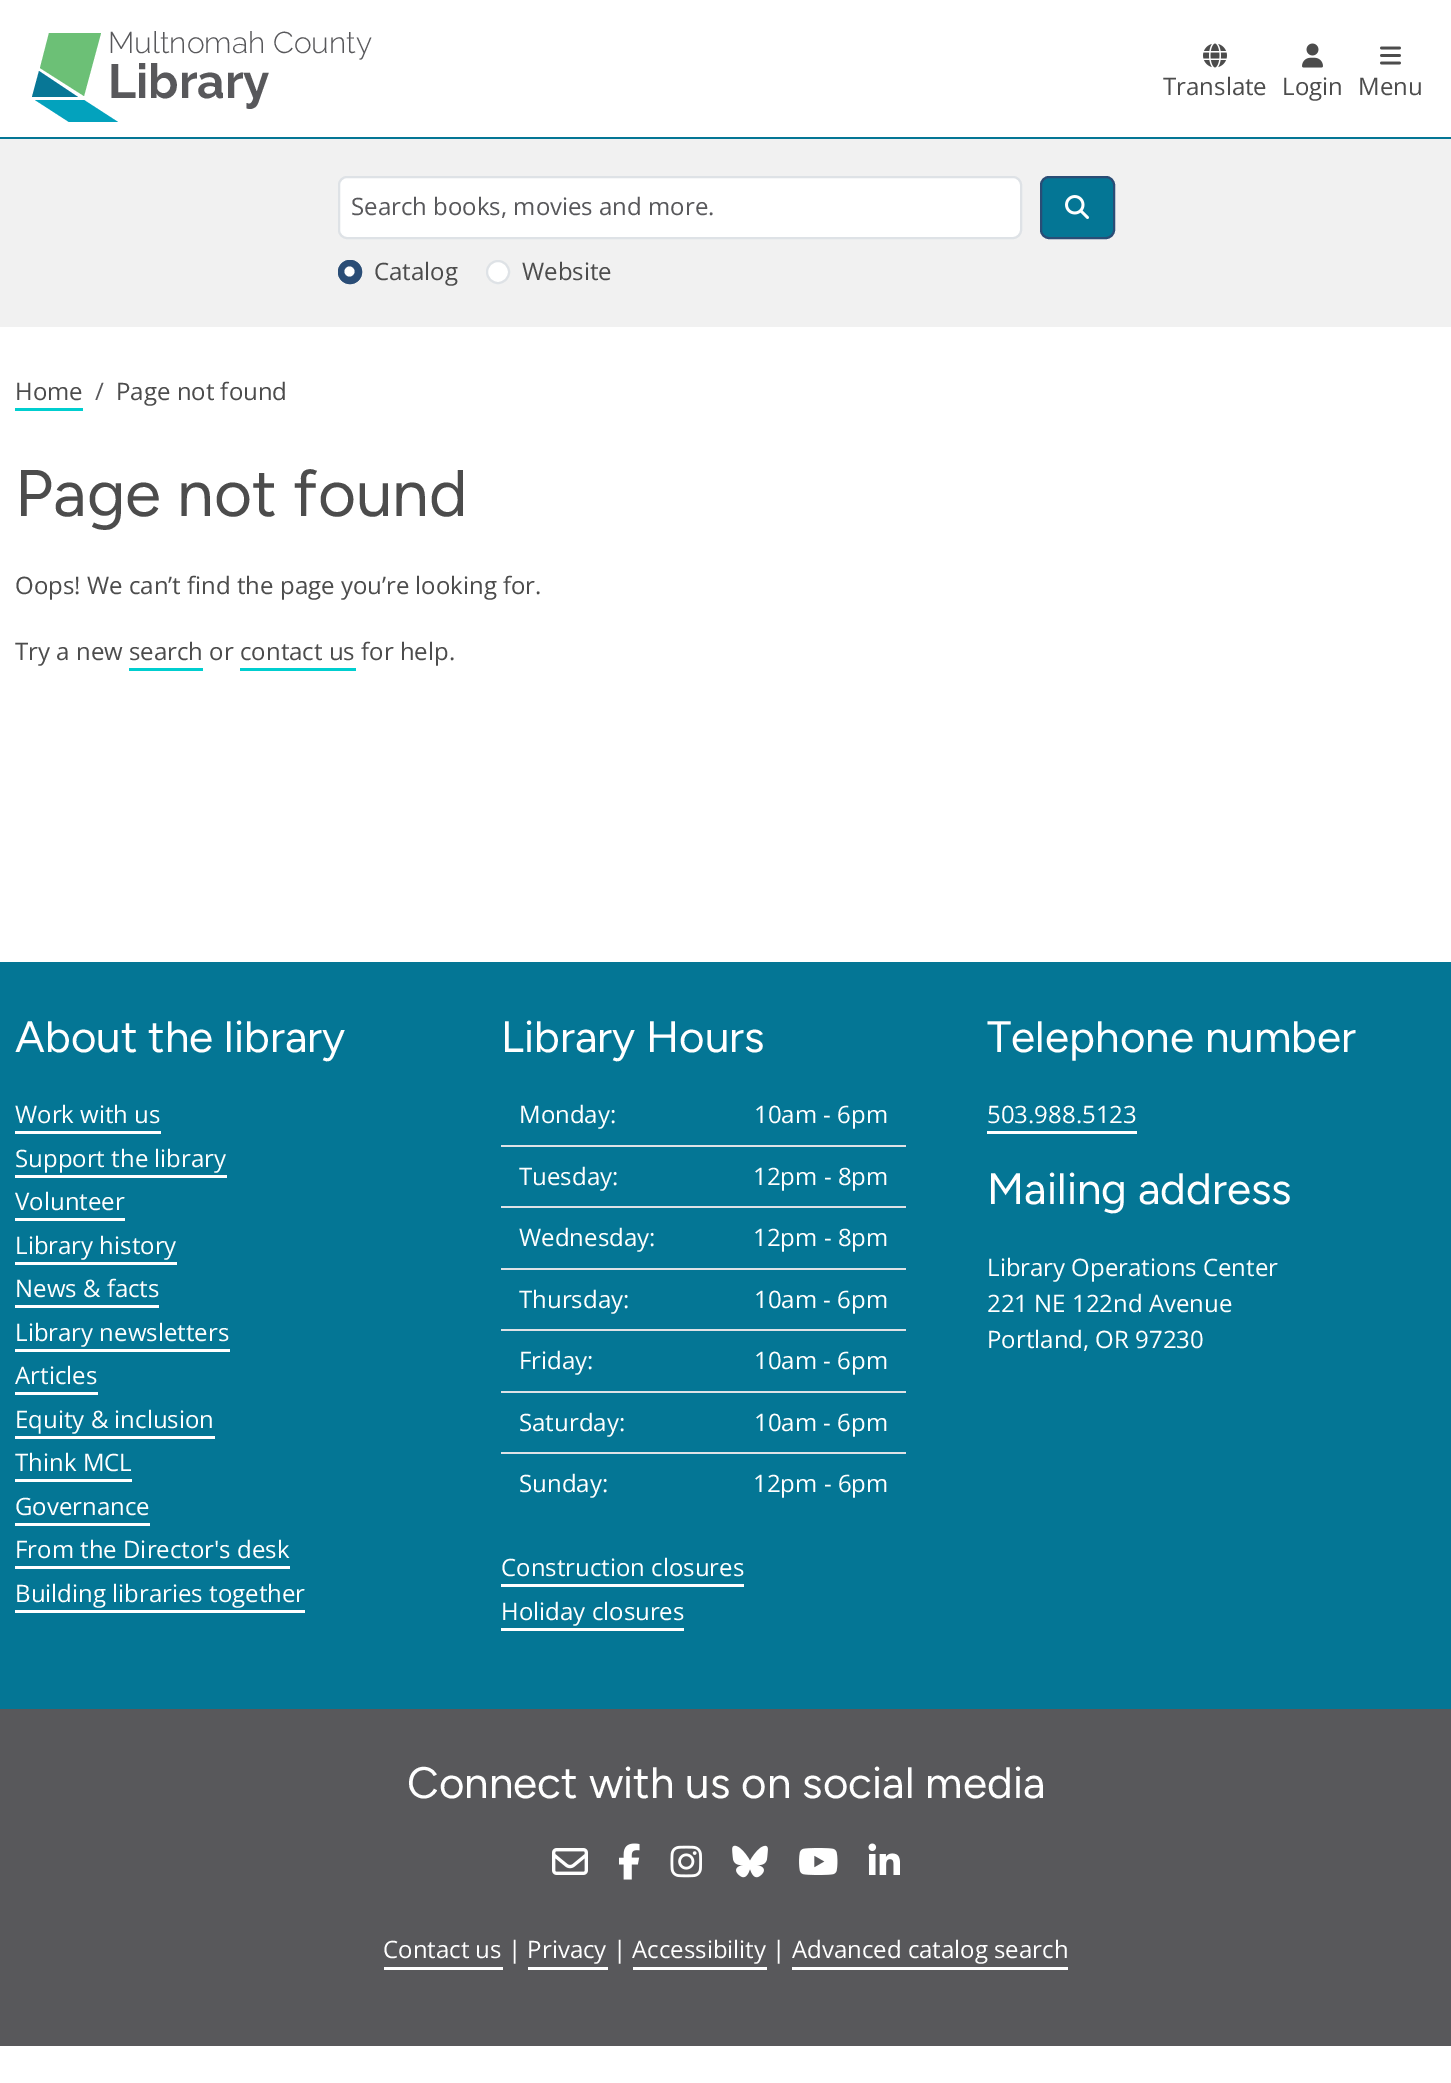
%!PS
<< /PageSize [1451 2083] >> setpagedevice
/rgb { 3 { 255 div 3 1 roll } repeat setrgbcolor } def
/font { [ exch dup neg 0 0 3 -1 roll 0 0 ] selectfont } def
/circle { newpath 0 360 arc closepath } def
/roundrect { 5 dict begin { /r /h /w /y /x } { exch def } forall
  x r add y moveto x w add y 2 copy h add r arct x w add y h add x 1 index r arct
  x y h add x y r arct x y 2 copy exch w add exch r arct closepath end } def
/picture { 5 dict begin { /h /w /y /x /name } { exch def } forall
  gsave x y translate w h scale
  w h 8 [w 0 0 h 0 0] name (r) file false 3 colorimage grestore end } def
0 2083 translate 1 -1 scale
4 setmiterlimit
255 255 255 rgb
0 0 1451 2083 rectfill
108 192 118 rgb
40 68 moveto 49 33 lineto 101 33 lineto 84 96 lineto closepath fill
8 119 150 rgb
39 71 moveto 32 97 lineto 78 97 lineto closepath fill
3 162 189 rgb
35 100 moveto 69 122 lineto 118 122 lineto 84 100 lineto closepath fill
(img/1.rgb) 1203 43 24 25 picture
(img/2.rgb) 1302 43 21 25 picture
(img/3.rgb) 1380 46 21 19 picture
241 241 241 rgb
0 139 1451 188 rectfill
4 118 149 rgb
0 137 1451 2 rectfill
255 255 255 rgb
339 177 682 61 8 roundrect gsave fill grestore
222 226 230 rgb
2 setlinewidth
stroke
42 77 118 rgb
350 272 12 circle fill
255 255 255 rgb
349.5 271.5 5 circle fill
42 77 118 rgb
350 272 11 circle stroke
255 255 255 rgb
498 272 11 circle gsave fill grestore
222 226 230 rgb
stroke
4 118 149 rgb
1041 177 73 61 8 roundrect gsave fill grestore
42 77 118 rgb
stroke
(img/4.rgb) 1065 195 24 24 picture
[
  [15 408 68 3 0 206 207]
  [129 668 74 3 0 206 207]
  [240 668 116 3 0 206 207]
  [0 962 1451 747 4 118 149]
  [15 1131 146 3 255 255 255]
  [15 1175 212 3 255 255 255]
  [15 1218 110 3 255 255 255]
  [15 1262 162 3 255 255 255]
  [15 1305 144 3 255 255 255]
  [15 1349 215 3 255 255 255]
  [15 1392 83 3 255 255 255]
  [15 1436 200 3 255 255 255]
  [15 1479 117 3 255 255 255]
  [15 1523 135 3 255 255 255]
  [15 1566 275 3 255 255 255]
  [15 1610 290 3 255 255 255]
  [501 1145 405 2 222 226 230]
  [501 1206 405 2 222 226 230]
  [501 1268 405 2 222 226 230]
  [501 1329 405 2 222 226 230]
  [501 1391 405 2 222 226 230]
  [501 1452 405 2 222 226 230]
  [501 1584 243 3 255 255 255]
  [501 1628 183 3 255 255 255]
  [987 1131 150 3 255 255 255]
  [0 1709 1451 337 88 88 91]
] { aload pop rgb rectfill } forall
(img/5.rgb) 552 1848 36 27 picture
(img/6.rgb) 619 1843 21 37 picture
(img/7.rgb) 670 1845 32 33 picture
(img/8.rgb) 732 1845 36 33 picture
(img/9.rgb) 799 1848 39 27 picture
(img/10.rgb) 868 1843 32 32 picture
[
  [384 1967 119 3 255 255 255]
  [528 1967 80 3 255 255 255]
  [633 1967 134 3 255 255 255]
  [792 1967 276 3 255 255 255]
] { aload pop rgb rectfill } forall
/Raleway-Light 30 font
88 88 91 rgb
108 53 moveto (Multnomah County) show
/Raleway-Bold 48 font
108 98 moveto (Library) show
/OpenSans-Regular 24 font
76 76 76 rgb
[
  [(Translate) 1163 95]
  [(Login) 1282 95]
  [(Menu) 1358 95]
] { aload pop moveto show } forall
88 88 91 rgb
351 215 moveto (Search books, movies and more.) show
76 76 76 rgb
[
  [(Catalog) 374 280]
  [(Website) 522 280]
  [(Home) 15 400]
] { aload pop moveto show } forall
88 88 91 rgb
95 400 moveto (/) show
76 76 76 rgb
116 400 moveto (Page not found) show
/Figtree-Regular 65.75 font
15 516 moveto (Page not found) show
/OpenSans-Regular 24 font
15 594 moveto (Oops! We can’t find the page you’re looking for.) show
15 660 moveto (Try a new search or contact us for help.) show
/Figtree-Regular 44 font
255 255 255 rgb
15 1052 moveto (About the library) show
/OpenSans-Regular 24 font
[
  [(Work with us) 15 1123]
  [(Support the library) 15 1167]
  [(Volunteer) 15 1210]
  [(Library history) 15 1254]
  [(News & facts) 15 1297]
  [(Library newsletters) 15 1341]
  [(Articles) 15 1384]
  [(Equity & inclusion) 15 1428]
  [(Think MCL) 15 1471]
  [(Governance) 15 1515]
  [(From the Director's desk) 15 1558]
  [(Building libraries together) 15 1602]
] { aload pop moveto show } forall
/Figtree-Regular 44 font
501 1052 moveto (Library Hours) show
/OpenSans-Regular 24 font
[
  [(Monday:) 519 1123]
  [(10am - 6pm) 754 1123]
  [(Tuesday:) 519 1185]
  [(12pm - 8pm) 753 1185]
  [(Wednesday:) 519 1246]
  [(12pm - 8pm) 753 1246]
  [(Thursday:) 519 1308]
  [(10am - 6pm) 754 1308]
  [(Friday:) 519 1369]
  [(10am - 6pm) 754 1369]
  [(Saturday:) 519 1431]
  [(10am - 6pm) 754 1431]
  [(Sunday:) 519 1492]
  [(12pm - 6pm) 753 1492]
  [(Construction closures) 501 1576]
  [(Holiday closures) 501 1620]
] { aload pop moveto show } forall
/Figtree-Regular 44 font
987 1052 moveto (Telephone number) show
/OpenSans-Regular 24 font
987 1123 moveto (503.988.5123) show
/Figtree-Regular 44 font
987 1204 moveto (Mailing address) show
/OpenSans-Regular 24 font
[
  [(Library Operations Center) 987 1276]
  [(221 NE 122nd Avenue) 987 1312]
  [(Portland, OR 97230) 987 1348]
] { aload pop moveto show } forall
/Figtree-Regular 44 font
407 1798 moveto (Connect with us on social media) show
/OpenSans-Regular 24 font
383 1958 moveto (Contact us | Privacy | Accessibility | Advanced catalog search) show
showpage
